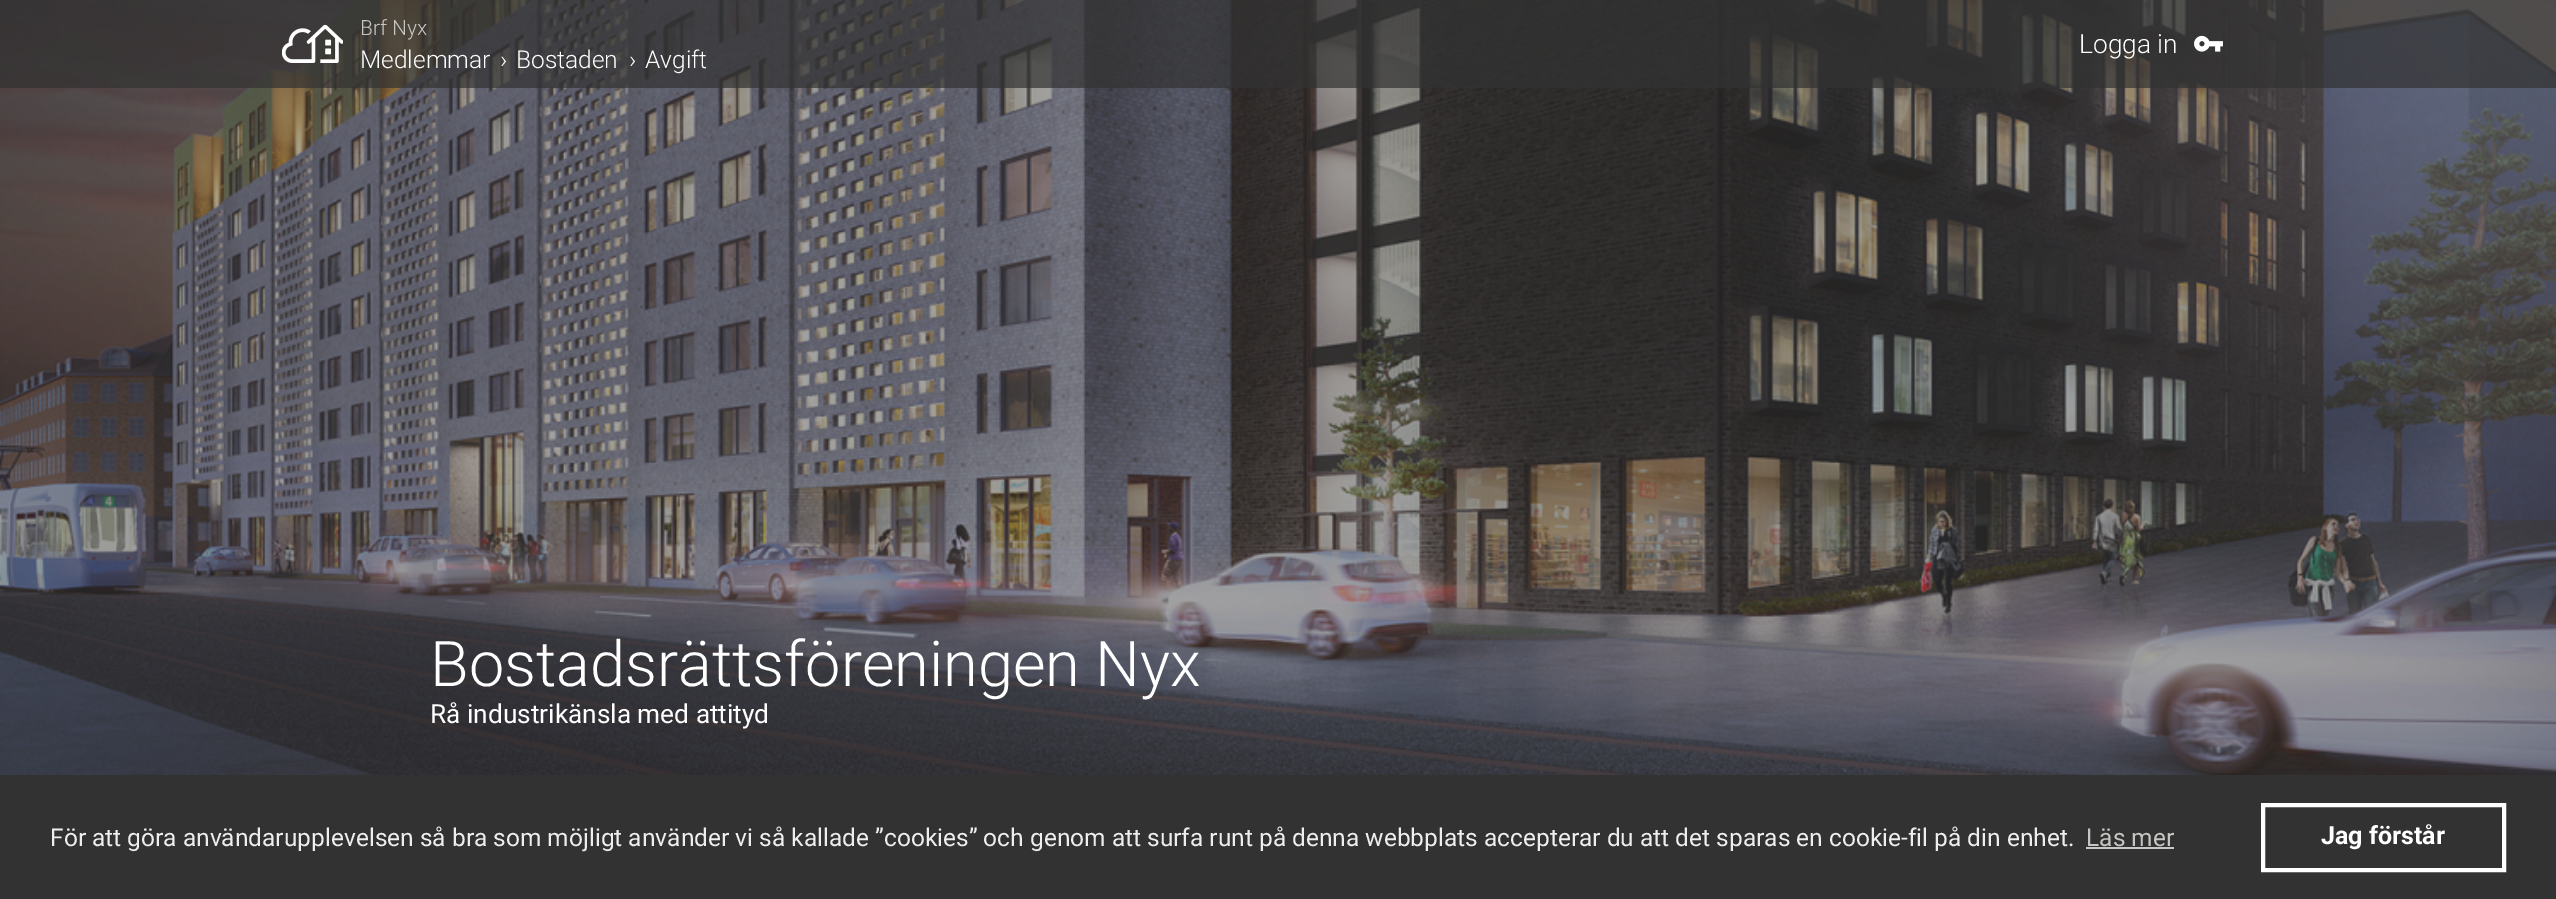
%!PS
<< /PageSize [2556 899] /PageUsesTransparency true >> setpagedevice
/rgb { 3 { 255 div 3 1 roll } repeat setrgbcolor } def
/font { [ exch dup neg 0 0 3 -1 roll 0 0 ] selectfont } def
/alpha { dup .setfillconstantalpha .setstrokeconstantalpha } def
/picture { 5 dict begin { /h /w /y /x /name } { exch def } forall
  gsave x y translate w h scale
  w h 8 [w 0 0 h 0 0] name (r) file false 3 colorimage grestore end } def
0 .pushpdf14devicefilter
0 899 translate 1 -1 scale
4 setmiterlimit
255 255 255 rgb
0 0 2556 899 rectfill
(img/3.rgb) 0 0 2556 775 picture
0.7 alpha
50 50 50 rgb
0 0 2556 88 rectfill
1 alpha
(img/1.rgb) 282 25 61 38 picture
(img/2.rgb) 2194 35 29 17 picture
0 775 2556 124 rectfill
200 200 200 rgb
2086 847 88 2 rectfill
255 255 255 rgb
4 setlinewidth
2263 805 241 65 rectstroke
/Roboto-Light 21 font
199 198 195 rgb
360 35 moveto (Brf Nyx) show
/Roboto-Light 24.5 font
255 255 255 rgb
[
  [(Medlemmar) 360 68]
  [(›) 500 68]
  [(Bostaden) 516 68]
  [(›) 629 68]
  [(Avgift) 645 68]
] { aload pop moveto show } forall
/Roboto-Light 26.25 font
2079 53 moveto (Logga in) show
/Roboto-Light 63 font
430 686 moveto (Bostadsrättsföreningen Nyx) show
/Roboto-Regular 26.25 font
430 723 moveto (Rå industrikänsla med attityd) show
/Roboto-Regular 24.5 font
238 238 238 rgb
50 846 moveto (För att göra användarupplevelsen så bra som möjligt använder vi så kallade ”cookies” och genom att surfa runt på denna webbplats accepterar du att det sparas en cookie-fil på din enhet.) show
199 198 195 rgb
2086 846 moveto (Läs mer) show
/Roboto-Bold 25 font
255 255 255 rgb
2321 844 moveto (Jag förstår) show
.poppdf14devicefilter showpage
